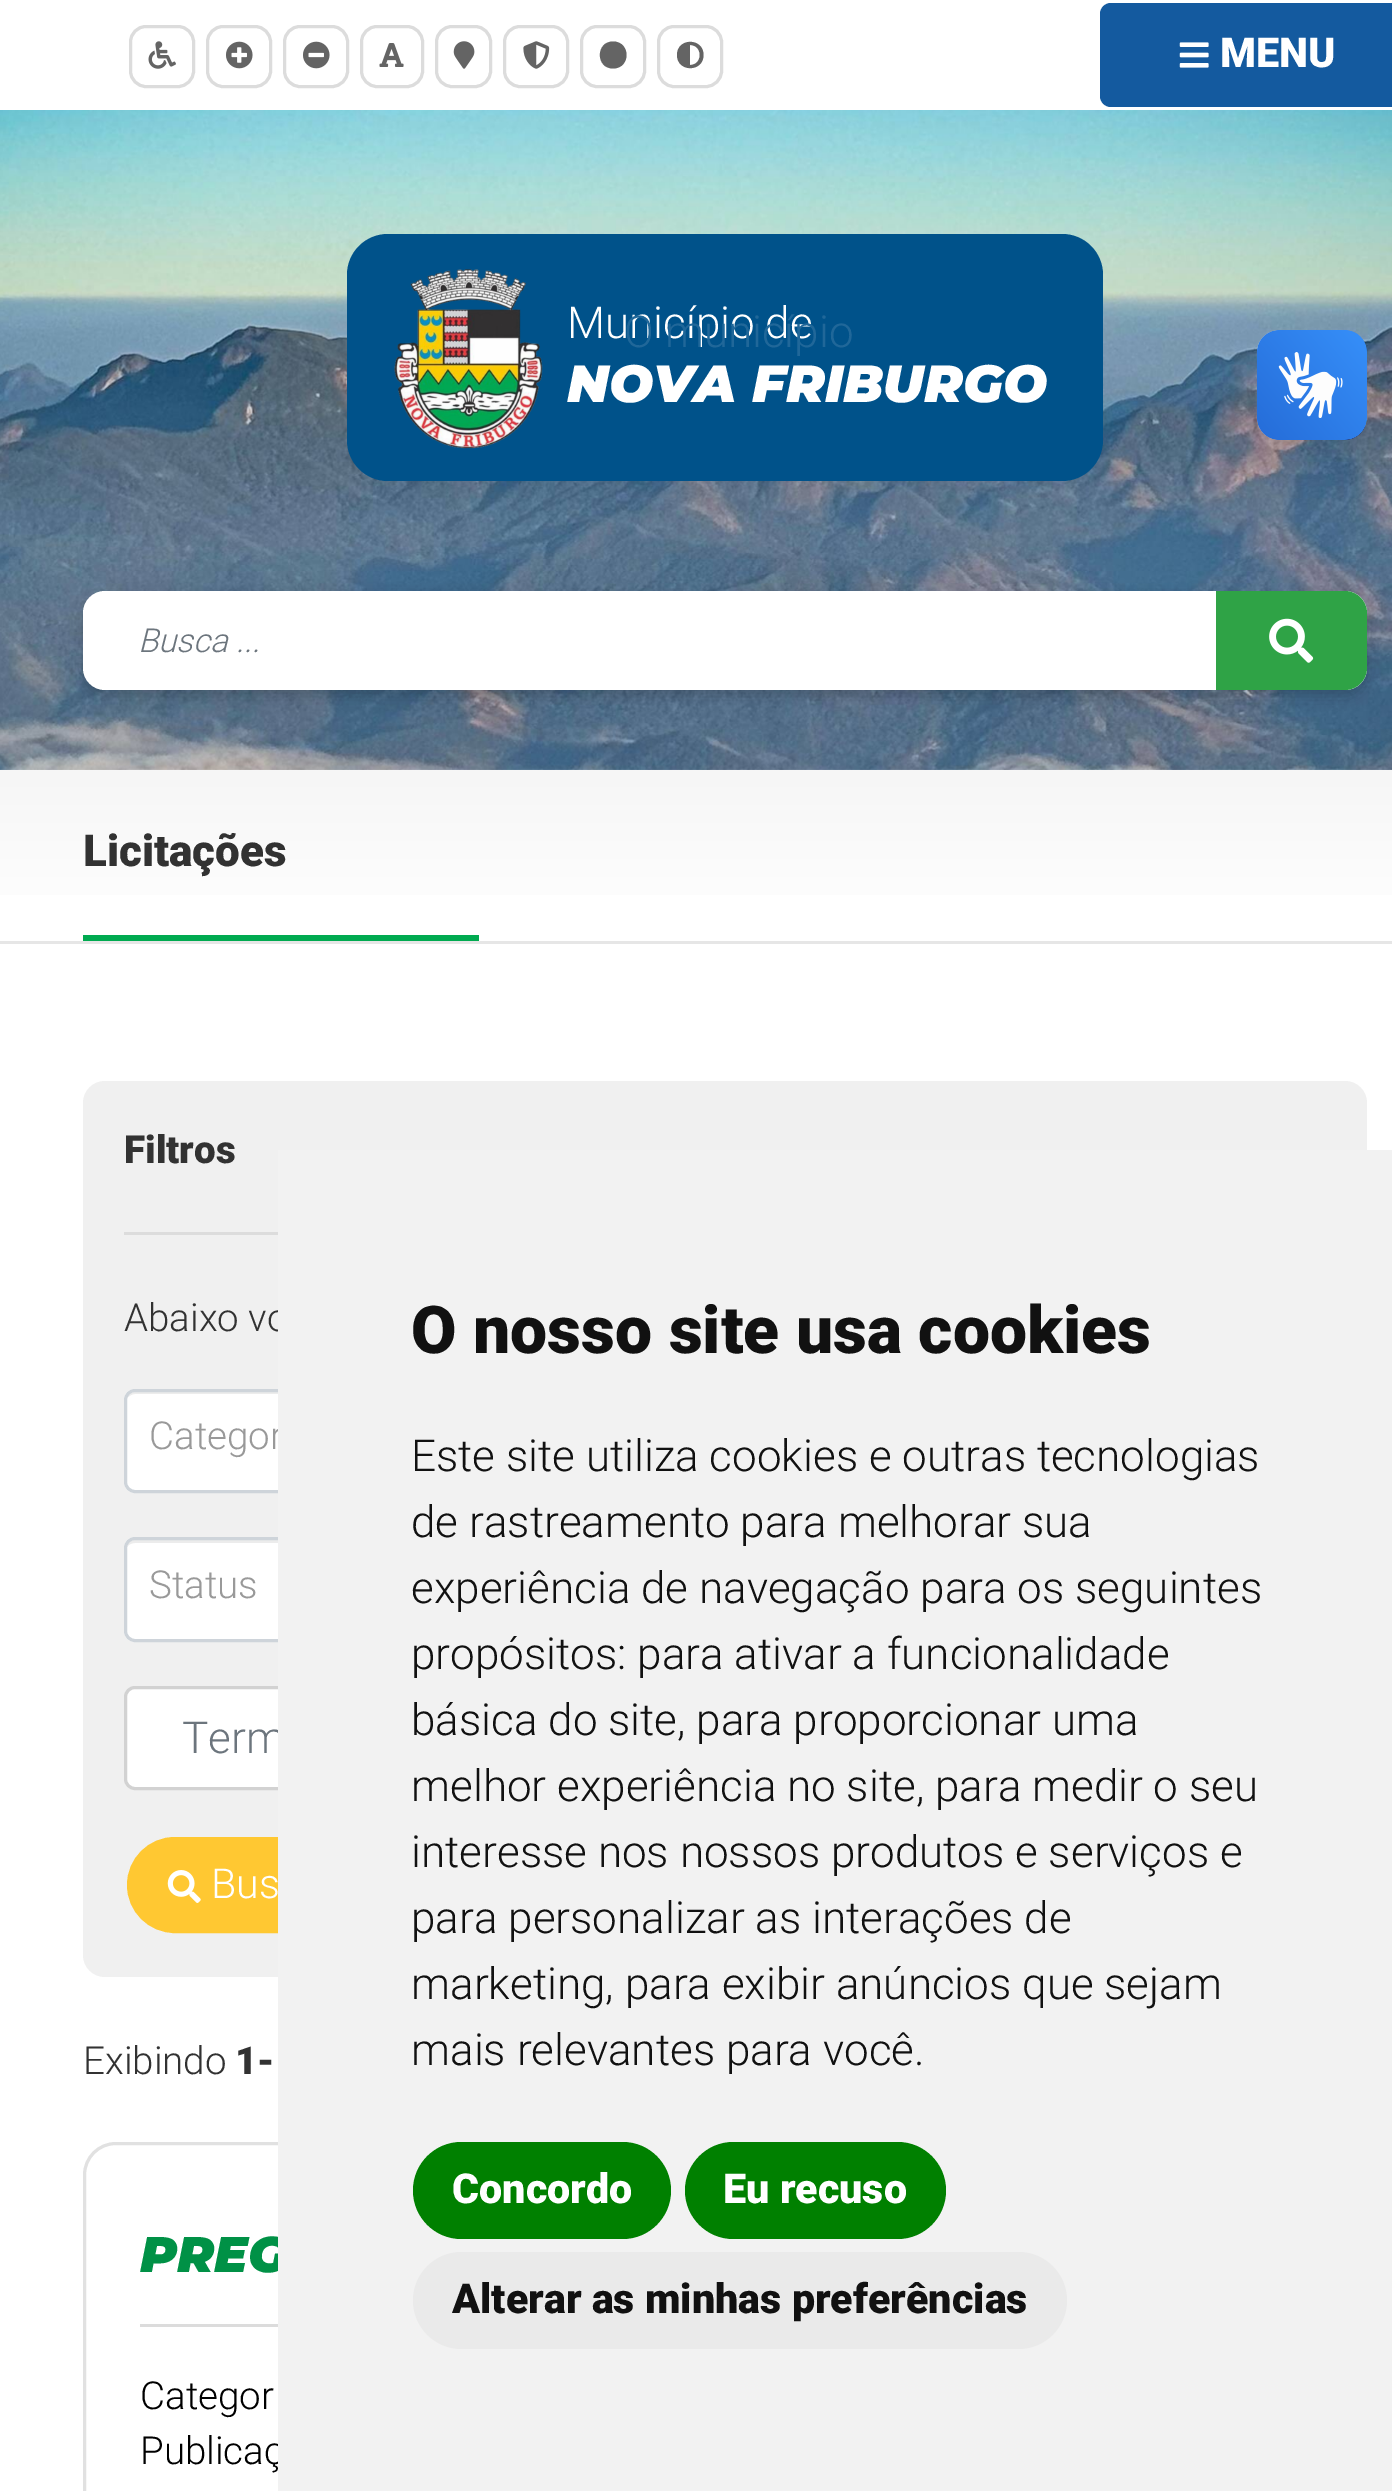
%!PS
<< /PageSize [1392 2491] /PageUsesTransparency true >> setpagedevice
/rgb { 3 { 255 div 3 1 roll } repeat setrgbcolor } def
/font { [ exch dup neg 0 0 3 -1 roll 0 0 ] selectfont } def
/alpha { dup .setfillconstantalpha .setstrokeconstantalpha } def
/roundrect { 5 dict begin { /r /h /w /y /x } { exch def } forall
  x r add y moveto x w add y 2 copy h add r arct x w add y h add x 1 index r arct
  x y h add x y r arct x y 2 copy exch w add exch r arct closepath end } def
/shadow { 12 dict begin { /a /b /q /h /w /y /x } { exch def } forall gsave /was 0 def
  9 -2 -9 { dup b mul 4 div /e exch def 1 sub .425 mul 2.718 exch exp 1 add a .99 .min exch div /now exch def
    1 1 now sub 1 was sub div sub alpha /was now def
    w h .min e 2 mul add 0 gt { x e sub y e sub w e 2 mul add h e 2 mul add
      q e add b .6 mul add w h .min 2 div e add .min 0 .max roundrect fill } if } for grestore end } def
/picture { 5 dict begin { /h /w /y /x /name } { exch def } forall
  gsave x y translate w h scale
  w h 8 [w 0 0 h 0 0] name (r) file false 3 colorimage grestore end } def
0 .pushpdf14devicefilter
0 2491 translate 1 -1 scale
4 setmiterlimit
255 255 255 rgb
0 0 1392 2491 rectfill
20 90 159 rgb
1100 3 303 104 11 roundrect fill
(img/1.rgb) 1179 42 30 26 picture
gsave 0 769 moveto 1392 769 lineto 1392 895 lineto 0 895 lineto closepath clip newpath
<< /ShadingType 2 /ColorSpace /DeviceRGB /Coords [697 941 697 756] /Extend [true true] /Function << /FunctionType 2 /Domain [0 1] /C0 [1 1 1] /C1 [0.961 0.961 0.961] /N 1 >> >> shfill grestore
(img/2.rgb) 0 110 1392 660 picture
220 220 220 rgb
3 setlinewidth
130.5 26.5 63 60 15.5 roundrect stroke
(img/3.rgb) 148 41 28 28 picture
207.5 26.5 63 60 15.5 roundrect stroke
(img/4.rgb) 226 41 27 28 picture
284.5 26.5 63 60 15.5 roundrect stroke
(img/5.rgb) 303 41 27 28 picture
361.5 26.5 61 60 15.5 roundrect stroke
(img/6.rgb) 379 43 25 24 picture
436.5 26.5 54 60 15.5 roundrect stroke
(img/7.rgb) 453 41 22 28 picture
504.5 26.5 63 60 15.5 roundrect stroke
(img/8.rgb) 523 41 27 28 picture
581.5 26.5 63 60 15.5 roundrect stroke
100 100 100 rgb
613 41.5 moveto 595.5 41.5 595.5 68.5 613 68.5 curveto 631 68.5 631 41.5 613 41.5 curveto closepath fill
220 220 220 rgb
658.5 26.5 63 60 15.5 roundrect stroke
100 100 100 rgb
677 55 moveto 677 72.5 703.5 72.5 703.5 55 curveto 703.5 37.5 677 37.5 677 55 curveto closepath 690 65 moveto 690 45 lineto 703 45 703 65 690 65 curveto closepath fill
0 82 138 rgb
347 234 756 247 41 roundrect fill
(img/9.rgb) 394 269 149 180 picture
0 0 0 rgb
83 597 1284 99 22 7 0.2 shadow
255 255 255 rgb
83 591 1284 99 22 roundrect fill
47 163 70 rgb
1216 591 moveto 1345 591 lineto 1357 591 1367 601 1367 613 curveto 1367 668 lineto 1367 680 1357 690 1345 690 curveto 1216 690 lineto closepath fill
(img/10.rgb) 1269 618 45 45 picture
(img/11.rgb) 1256 330 111 110 picture
(img/12.rgb) 1257 330 110 110 picture
230 230 230 rgb
0 941 1392 3 rectfill
0 170 80 rgb
83 935 396 6 rectfill
240 240 240 rgb
83 1081 1284 896 22 roundrect fill
220 220 220 rgb
124 1232 154 3 rectfill
255 255 255 rgb
124 1389 1202 104 11 roundrect fill
236 236 236 rgb
135 1394 moveto 1314 1394 lineto 1319 1394 1323 1398 1323 1402 curveto 1323 1400 lineto 1323 1396 1319 1392 1315 1392 curveto 135 1392 lineto 131 1392 128 1395 127 1398 curveto 129 1396 132 1394 135 1394 curveto closepath fill
206 212 218 rgb
125.5 1390.5 1199 101 9.5 roundrect stroke
255 255 255 rgb
124 1537 1202 105 11 roundrect fill
236 236 236 rgb
135 1543 moveto 1314 1543 lineto 1319 1543 1323 1546 1323 1551 curveto 1323 1548 lineto 1323 1544 1319 1540 1315 1540 curveto 135 1540 lineto 131 1540 128 1543 127 1547 curveto 129 1544 132 1543 135 1543 curveto closepath fill
206 212 218 rgb
125.5 1538.5 1199 102 9.5 roundrect stroke
255 255 255 rgb
125.5 1687.5 1199 101 9.5 roundrect gsave fill grestore
210 210 210 rgb
stroke
255 200 50 rgb
128.5 1838.5 250 93 46.5 roundrect gsave fill grestore
stroke
(img/13.rgb) 167 1870 34 33 picture
225 225 225 rgb
84.5 2143.5 1281 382 31.5 roundrect stroke
220 220 220 rgb
140 2324 138 3 rectfill
/Roboto-Black 41.25 font
255 255 255 rgb
1220 67 moveto (MENU) show
/Roboto-Light 44 font
567 338 moveto (Município de) show
32 103 153 rgb
624 347 moveto (O município) show
/Montserrat-ThinItalic 52.25 font
255 255 255 rgb
567 402 moveto (NOVA FRIBURGO) show
/Roboto-LightItalic 33 font
108 117 125 rgb
138 652 moveto (Busca ...) show
/Roboto-Black 44 font
50 50 50 rgb
83 866 moveto (Licitações) show
/Roboto-Black 38.5 font
124 1163 moveto (Filtros) show
/Roboto-Light 38.5 font
124 1331 moveto (Abaixo vo) show
153 153 153 rgb
149 1449 moveto (Categor) show
149 1598 moveto (Status) show
/Roboto-Light 44 font
108 117 125 rgb
182 1753 moveto (Term) show
/Roboto-Light 41.25 font
255 255 255 rgb
211 1898 moveto (Bus) show
/Roboto-Light 38.5 font
50 50 50 rgb
83 2074 moveto (Exibindo) show
/Roboto-Black 38.5 font
235 2074 moveto (1-) show
/Montserrat-ThinItalic 50 font
0 145 70 rgb
140 2272 moveto (PREG) show
/Roboto-Light 38.5 font
0 0 0 rgb
140 2409 moveto (Categor) show
140 2464 moveto (Publicaç) show
242 242 242 rgb
278 1150 1114 1341 rectfill
/Roboto-Black 66 font
17 17 17 rgb
411 1353 moveto (O nosso site usa cookies) show
/Roboto-Light 44 font
[
  [(Este site utiliza cookies e outras tecnologias) 411 1471]
  [(de rastreamento para melhorar sua) 411 1537]
  [(experiência de navegação para os seguintes) 411 1603]
  [(propósitos: para ativar a funcionalidade) 411 1669]
  [(básica do site, para proporcionar uma) 411 1735]
  [(melhor experiência no site, para medir o seu) 411 1801]
  [(interesse nos nossos produtos e serviços e) 411 1867]
  [(para personalizar as interações de) 411 1933]
  [(marketing, para exibir anúncios que sejam) 411 1999]
  [(mais relevantes para você.) 411 2065]
] { aload pop moveto show } forall
0 128 0 rgb
413 2142 258 97 48.5 roundrect fill
/Roboto-Black 41.25 font
255 255 255 rgb
452 2203 moveto (Concordo) show
0 128 0 rgb
685 2142 261 97 48.5 roundrect fill
255 255 255 rgb
723 2203 moveto (Eu recuso) show
234 234 234 rgb
413 2252 654 97 48.5 roundrect fill
17 17 17 rgb
452 2313 moveto (Alterar as minhas preferências) show
.poppdf14devicefilter showpage
